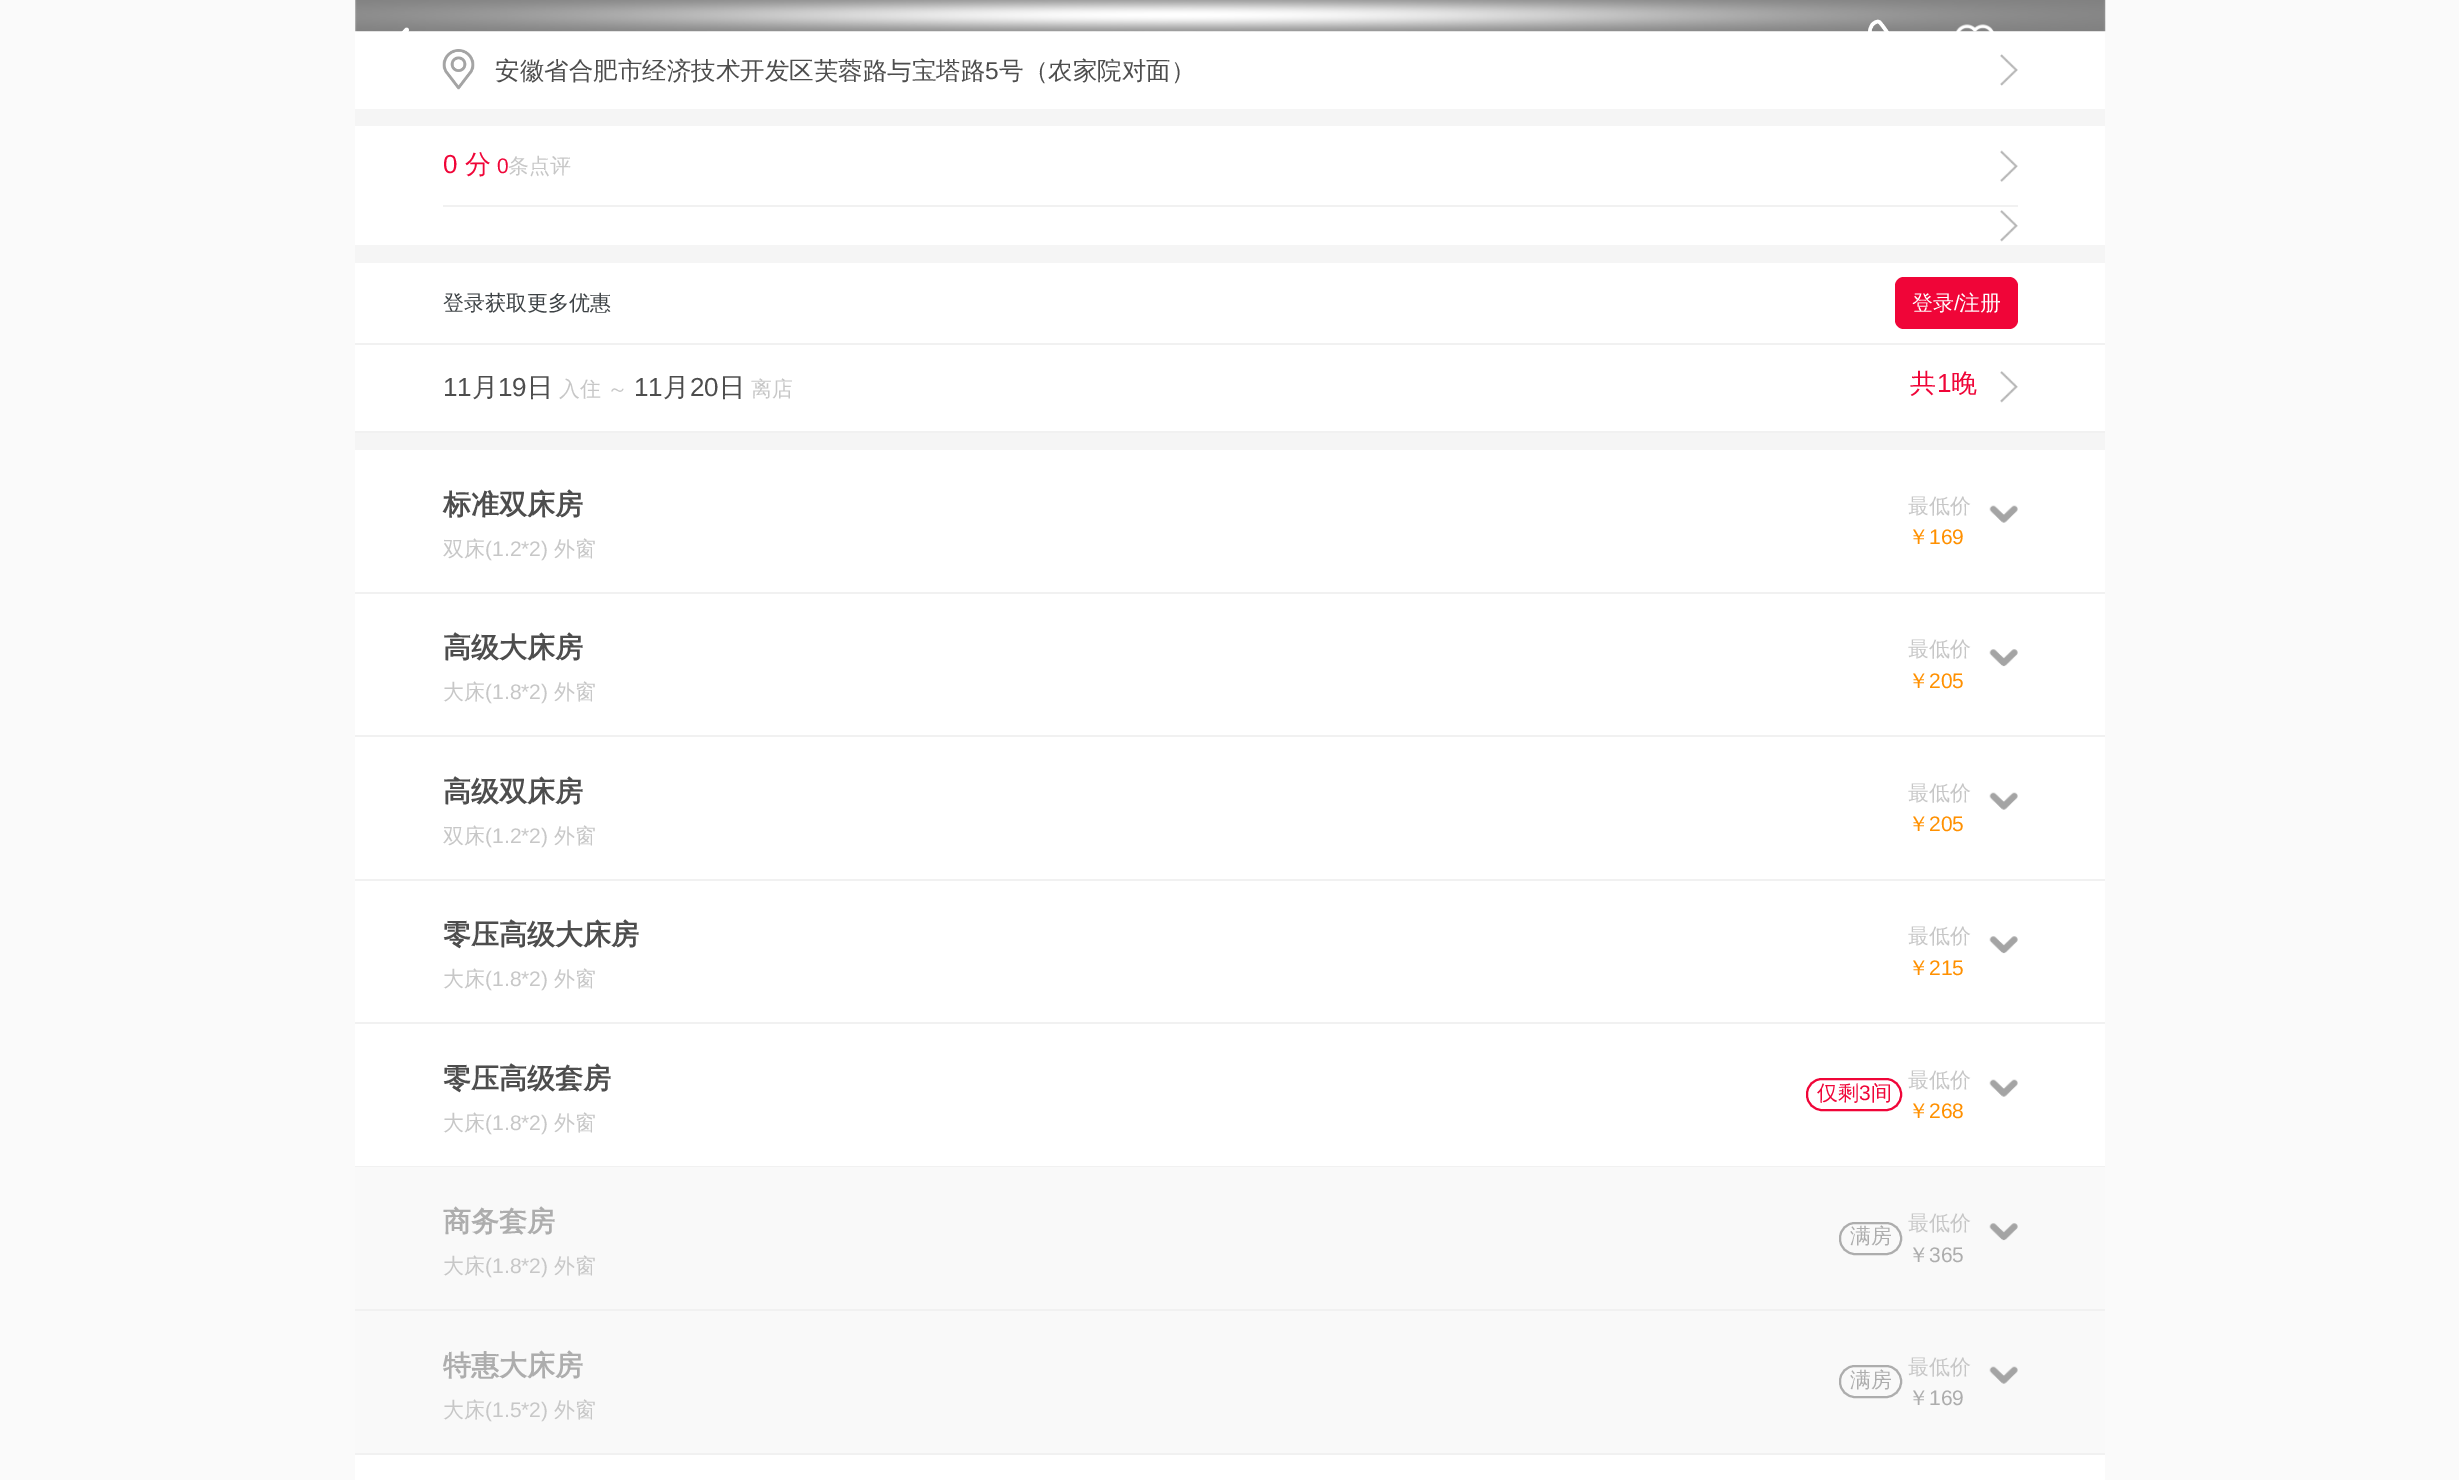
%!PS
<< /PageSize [2459 1480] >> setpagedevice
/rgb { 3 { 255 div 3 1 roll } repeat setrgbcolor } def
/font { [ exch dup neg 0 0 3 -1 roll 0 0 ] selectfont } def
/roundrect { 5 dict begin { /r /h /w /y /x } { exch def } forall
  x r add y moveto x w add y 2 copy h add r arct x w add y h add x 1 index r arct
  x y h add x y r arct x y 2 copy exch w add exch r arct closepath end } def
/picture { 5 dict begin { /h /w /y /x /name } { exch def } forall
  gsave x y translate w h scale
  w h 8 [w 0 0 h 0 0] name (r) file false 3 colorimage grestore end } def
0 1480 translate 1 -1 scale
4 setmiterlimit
250 250 250 rgb
0 0 2459 1480 rectfill
255 255 255 rgb
355 0 1750 1480 rectfill
(img/1.rgb) 355 0 1751 32 picture
(img/2.rgb) 401 27 8 5 picture
(img/3.rgb) 1868 19 21 13 picture
(img/4.rgb) 1956 24 38 8 picture
245 245 245 rgb
355 109 1750 341 rectfill
(img/5.rgb) 2000 54 18 32 picture
(img/6.rgb) 442 49 33 41 picture
255 255 255 rgb
355 126 1750 119 rectfill
(img/7.rgb) 2000 150 18 32 picture
241 241 241 rgb
443 205 1575 2 rectfill
(img/8.rgb) 2000 210 18 32 picture
255 255 255 rgb
355 263 1750 80 rectfill
241 241 241 rgb
355 343 1750 2 rectfill
240 5 56 rgb
1895 277 123 52 9 roundrect fill
255 255 255 rgb
355 345 1750 86 rectfill
241 241 241 rgb
355 431 1750 2 rectfill
(img/8.rgb) 2000 371 18 32 picture
355 592 1750 2 rectfill
(img/9.rgb) 1989 505 29 18 picture
355 735 1750 2 rectfill
(img/10.rgb) 1989 649 29 18 picture
355 879 1750 2 rectfill
(img/9.rgb) 1989 792 29 18 picture
355 1022 1750 2 rectfill
(img/10.rgb) 1989 936 29 18 picture
355 1166 1750 1 rectfill
240 5 56 rgb
2 setlinewidth
1807 1079 94 31 15 roundrect stroke
(img/9.rgb) 1989 1079 29 18 picture
249 249 249 rgb
355 1167 1750 142 rectfill
241 241 241 rgb
355 1309 1750 2 rectfill
173 173 173 rgb
1840 1223 61 31 15 roundrect stroke
(img/11.rgb) 1989 1223 29 18 picture
249 249 249 rgb
355 1311 1750 142 rectfill
241 241 241 rgb
355 1453 1750 2 rectfill
173 173 173 rgb
1840 1366 61 31 15 roundrect stroke
(img/12.rgb) 1989 1366 29 18 picture
/WenQuanYiZenHei-Medium 24.5 font
77 77 77 rgb
495 79 moveto (安徽省合肥市经济技术开发区芙蓉路与宝塔路) show
/LiberationSans-Regular 24.5 font
985 79 moveto (5) show
/WenQuanYiZenHei-Medium 24.5 font
999 79 moveto (号（农家院对面）) show
/LiberationSans-Regular 26 font
240 5 56 rgb
443 173 moveto (0) show
/WenQuanYiZenHei-Medium 26 font
465 173 moveto (分) show
/LiberationSans-Regular 21 font
497 173 moveto (0) show
/WenQuanYiZenHei-Medium 21 font
199 199 199 rgb
508 173 moveto (条点评) show
61 66 69 rgb
443 310 moveto (登录获取更多优惠) show
255 255 255 rgb
1912 310 moveto (登录) show
/LiberationSans-Regular 21 font
1954 310 moveto (/) show
/WenQuanYiZenHei-Medium 21 font
1959 310 moveto (注册) show
/LiberationSans-Regular 26 font
77 77 77 rgb
443 396 moveto (11) show
/WenQuanYiZenHei-Medium 26 font
472 396 moveto (月) show
/LiberationSans-Regular 26 font
498 396 moveto (19) show
/WenQuanYiZenHei-Medium 26 font
527 396 moveto (日) show
/WenQuanYiZenHei-Medium 21 font
199 199 199 rgb
559 396 moveto (入住) show
607 396 moveto (～) show
/LiberationSans-Regular 26 font
77 77 77 rgb
634 396 moveto (11) show
/WenQuanYiZenHei-Medium 26 font
663 396 moveto (月) show
/LiberationSans-Regular 26 font
690 396 moveto (20) show
/WenQuanYiZenHei-Medium 26 font
719 396 moveto (日) show
/WenQuanYiZenHei-Medium 21 font
199 199 199 rgb
751 396 moveto (离店) show
/WenQuanYiZenHei-Medium 26 font
240 5 56 rgb
1910 392 moveto (共) show
/LiberationSans-Regular 26 font
1937 392 moveto (1) show
/WenQuanYiZenHei-Medium 26 font
1951 392 moveto (晚) show
/WenQuanYiZenHei-Bold 28 font
77 77 77 rgb
443 514 moveto (标准双床房) show
/WenQuanYiZenHei-Medium 21 font
199 199 199 rgb
443 556 moveto (双床) show
/LiberationSans-Regular 21 font
485 556 moveto (\(1.2*2\)) show
/WenQuanYiZenHei-Medium 21 font
554 556 moveto (外窗) show
1908 513 moveto (最低价) show
255 144 0 rgb
1908 544 moveto (￥) show
/LiberationSans-Regular 21 font
1929 544 moveto (169) show
/WenQuanYiZenHei-Bold 28 font
77 77 77 rgb
443 657 moveto (高级大床房) show
/WenQuanYiZenHei-Medium 21 font
199 199 199 rgb
443 699 moveto (大床) show
/LiberationSans-Regular 21 font
485 699 moveto (\(1.8*2\)) show
/WenQuanYiZenHei-Medium 21 font
554 699 moveto (外窗) show
1908 656 moveto (最低价) show
255 144 0 rgb
1908 688 moveto (￥) show
/LiberationSans-Regular 21 font
1929 688 moveto (205) show
/WenQuanYiZenHei-Bold 28 font
77 77 77 rgb
443 801 moveto (高级双床房) show
/WenQuanYiZenHei-Medium 21 font
199 199 199 rgb
443 843 moveto (双床) show
/LiberationSans-Regular 21 font
485 843 moveto (\(1.2*2\)) show
/WenQuanYiZenHei-Medium 21 font
554 843 moveto (外窗) show
1908 800 moveto (最低价) show
255 144 0 rgb
1908 831 moveto (￥) show
/LiberationSans-Regular 21 font
1929 831 moveto (205) show
/WenQuanYiZenHei-Bold 28 font
77 77 77 rgb
443 944 moveto (零压高级大床房) show
/WenQuanYiZenHei-Medium 21 font
199 199 199 rgb
443 986 moveto (大床) show
/LiberationSans-Regular 21 font
485 986 moveto (\(1.8*2\)) show
/WenQuanYiZenHei-Medium 21 font
554 986 moveto (外窗) show
1908 943 moveto (最低价) show
255 144 0 rgb
1908 975 moveto (￥) show
/LiberationSans-Regular 21 font
1929 975 moveto (215) show
/WenQuanYiZenHei-Bold 28 font
77 77 77 rgb
443 1088 moveto (零压高级套房) show
/WenQuanYiZenHei-Medium 21 font
199 199 199 rgb
443 1130 moveto (大床) show
/LiberationSans-Regular 21 font
485 1130 moveto (\(1.8*2\)) show
/WenQuanYiZenHei-Medium 21 font
554 1130 moveto (外窗) show
240 5 56 rgb
1817 1100 moveto (仅剩) show
/LiberationSans-Regular 21 font
1859 1100 moveto (3) show
/WenQuanYiZenHei-Medium 21 font
1871 1100 moveto (间) show
199 199 199 rgb
1908 1087 moveto (最低价) show
255 144 0 rgb
1908 1118 moveto (￥) show
/LiberationSans-Regular 21 font
1929 1118 moveto (268) show
/WenQuanYiZenHei-Bold 28 font
173 173 173 rgb
443 1231 moveto (商务套房) show
/WenQuanYiZenHei-Medium 21 font
199 199 199 rgb
443 1273 moveto (大床) show
/LiberationSans-Regular 21 font
485 1273 moveto (\(1.8*2\)) show
/WenQuanYiZenHei-Medium 21 font
554 1273 moveto (外窗) show
173 173 173 rgb
1850 1243 moveto (满房) show
199 199 199 rgb
1908 1230 moveto (最低价) show
173 173 173 rgb
1908 1262 moveto (￥) show
/LiberationSans-Regular 21 font
1929 1262 moveto (365) show
/WenQuanYiZenHei-Bold 28 font
443 1375 moveto (特惠大床房) show
/WenQuanYiZenHei-Medium 21 font
199 199 199 rgb
443 1417 moveto (大床) show
/LiberationSans-Regular 21 font
485 1417 moveto (\(1.5*2\)) show
/WenQuanYiZenHei-Medium 21 font
554 1417 moveto (外窗) show
173 173 173 rgb
1850 1387 moveto (满房) show
199 199 199 rgb
1908 1374 moveto (最低价) show
173 173 173 rgb
1908 1405 moveto (￥) show
/LiberationSans-Regular 21 font
1929 1405 moveto (169) show
showpage
